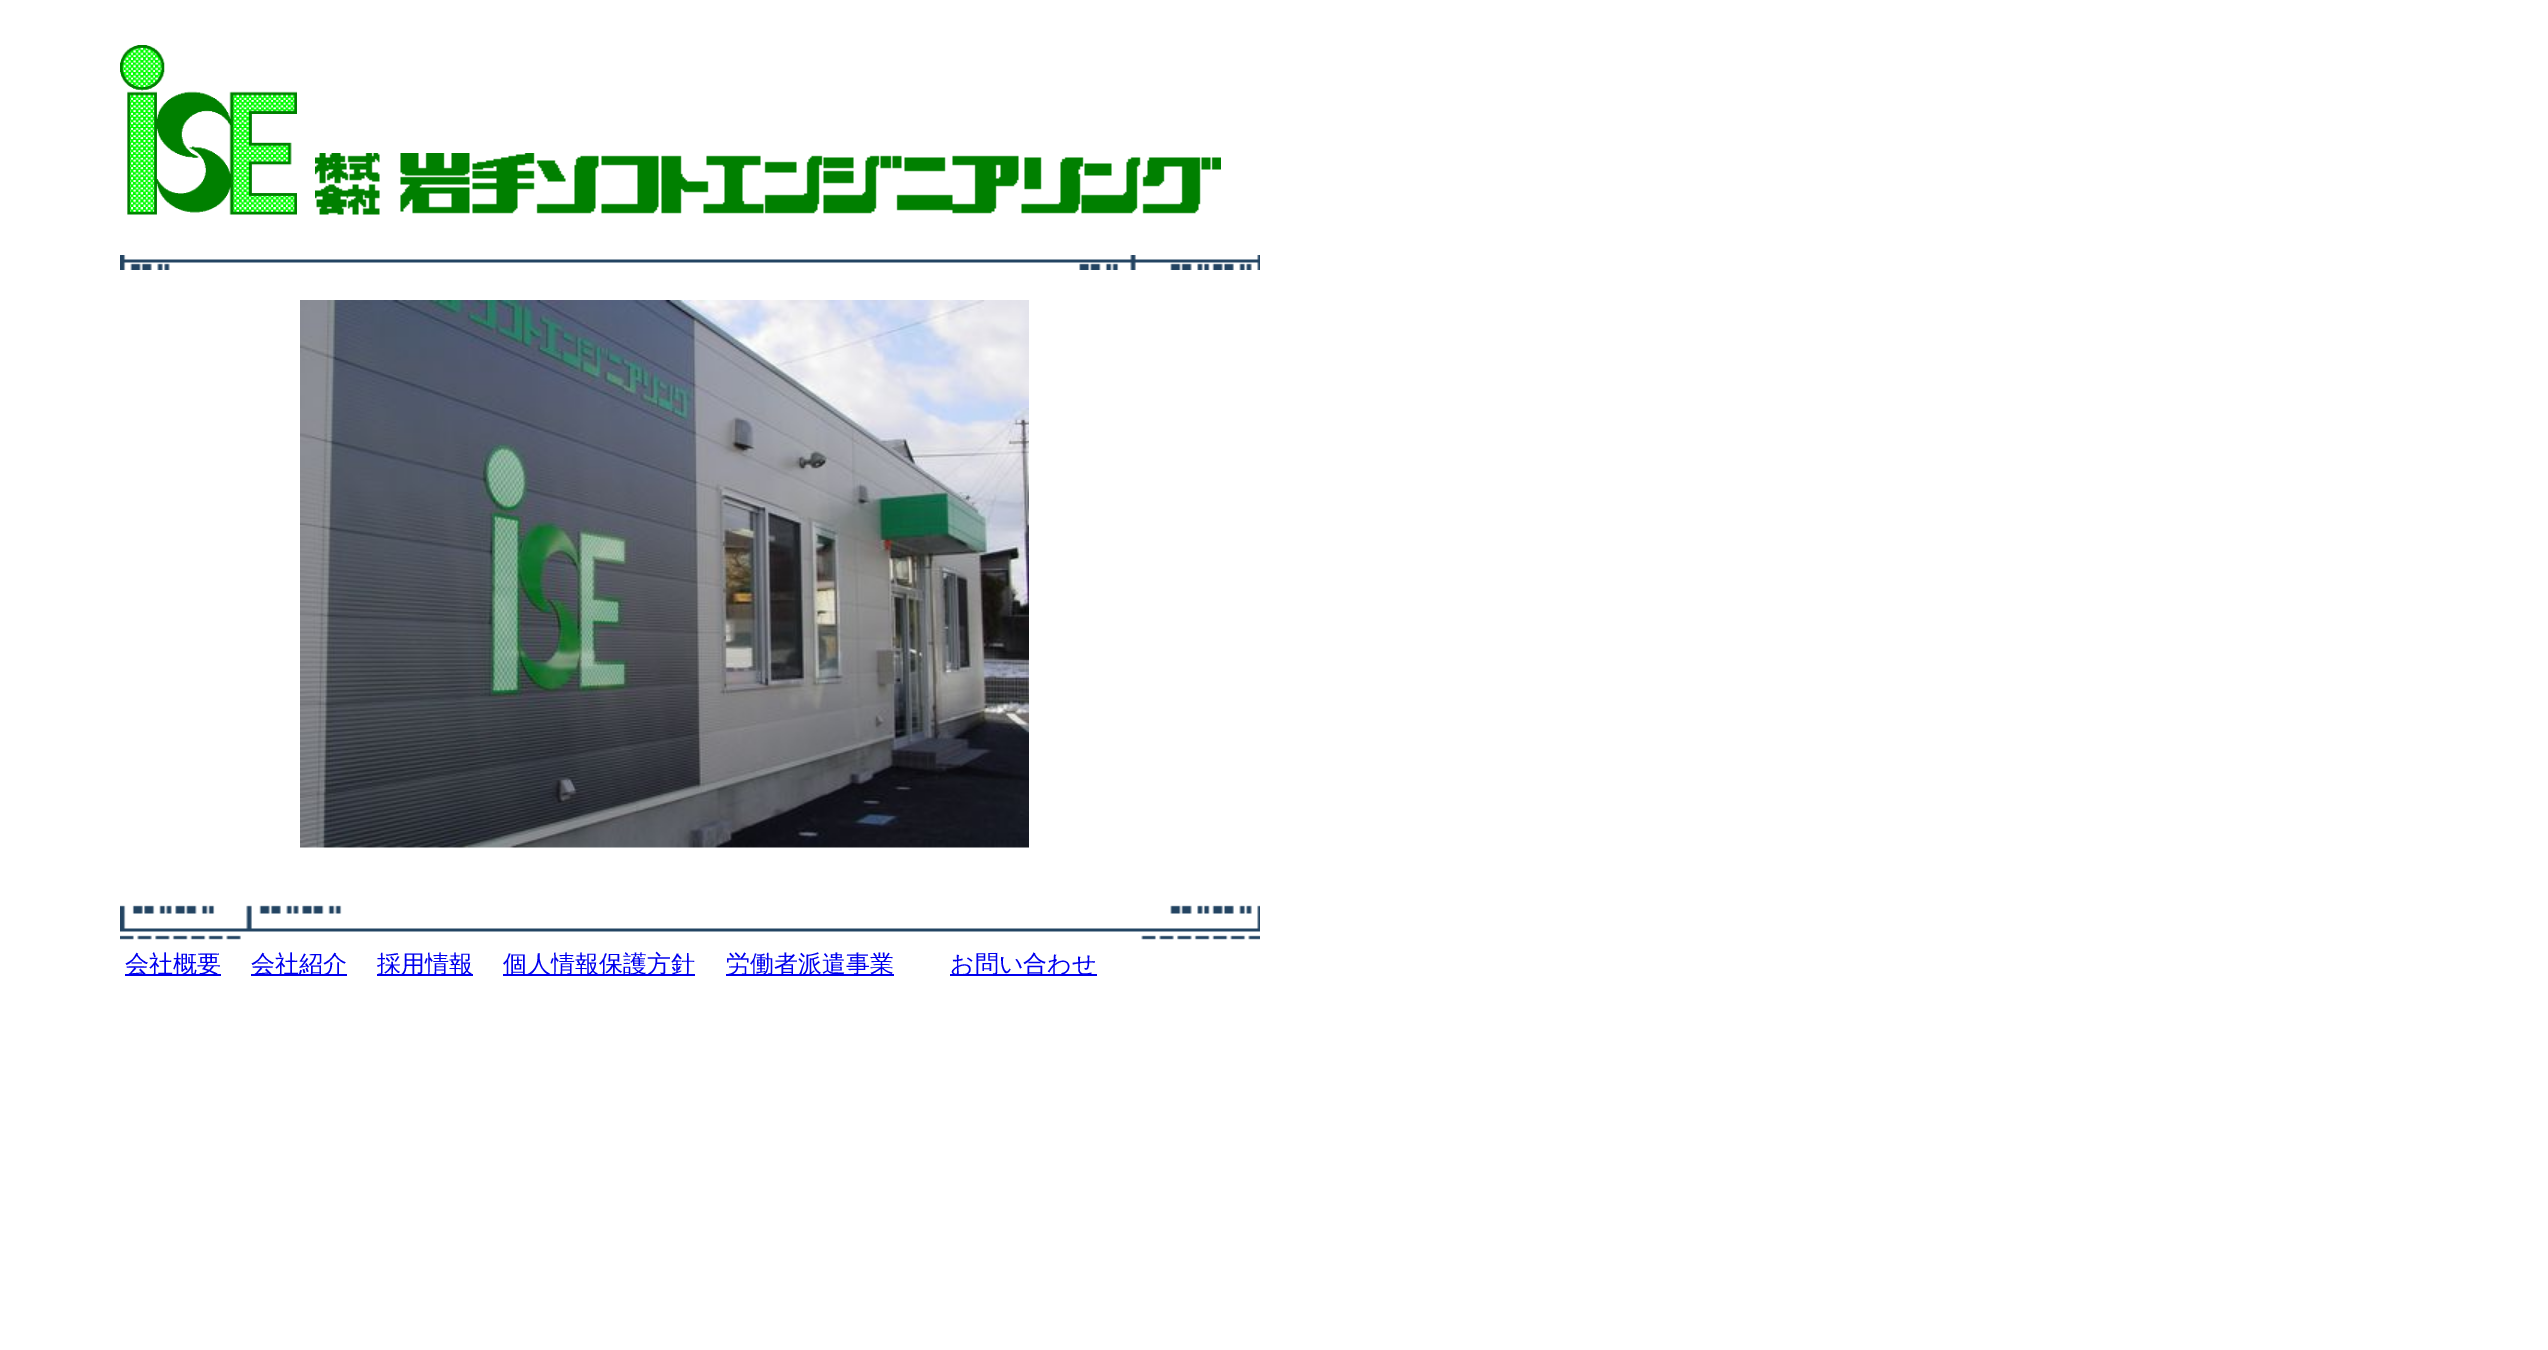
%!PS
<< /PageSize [2548 1350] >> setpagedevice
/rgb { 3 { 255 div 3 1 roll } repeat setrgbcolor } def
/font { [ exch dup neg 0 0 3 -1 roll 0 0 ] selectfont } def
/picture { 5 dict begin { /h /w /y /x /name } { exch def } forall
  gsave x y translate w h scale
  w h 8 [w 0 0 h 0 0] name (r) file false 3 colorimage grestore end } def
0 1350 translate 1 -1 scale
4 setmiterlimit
255 255 255 rgb
0 0 2548 1350 rectfill
(img/1.rgb) 120 45 177 170 picture
(img/2.rgb) 315 153 906 62 picture
(img/3.rgb) 120 255 1140 15 picture
(img/4.rgb) 300 300 729 548 picture
(img/5.rgb) 120 905 1140 35 picture
[
  [125 974 96 2 0 0 238]
  [251 974 96 2 0 0 238]
  [377 974 96 2 0 0 238]
  [503 974 192 2 0 0 238]
  [726 974 168 2 0 0 238]
  [950 974 147 2 0 0 238]
] { aload pop rgb rectfill } forall
/WenQuanYiZenHei-Medium 24 font
[
  [(会社概要) 125 972]
  [(会社紹介) 251 972]
  [(採用情報) 377 972]
  [(個人情報保護方針) 503 972]
  [(労働者派遣事業) 726 972]
  [(お問い合わせ) 950 972]
] { aload pop moveto show } forall
showpage
